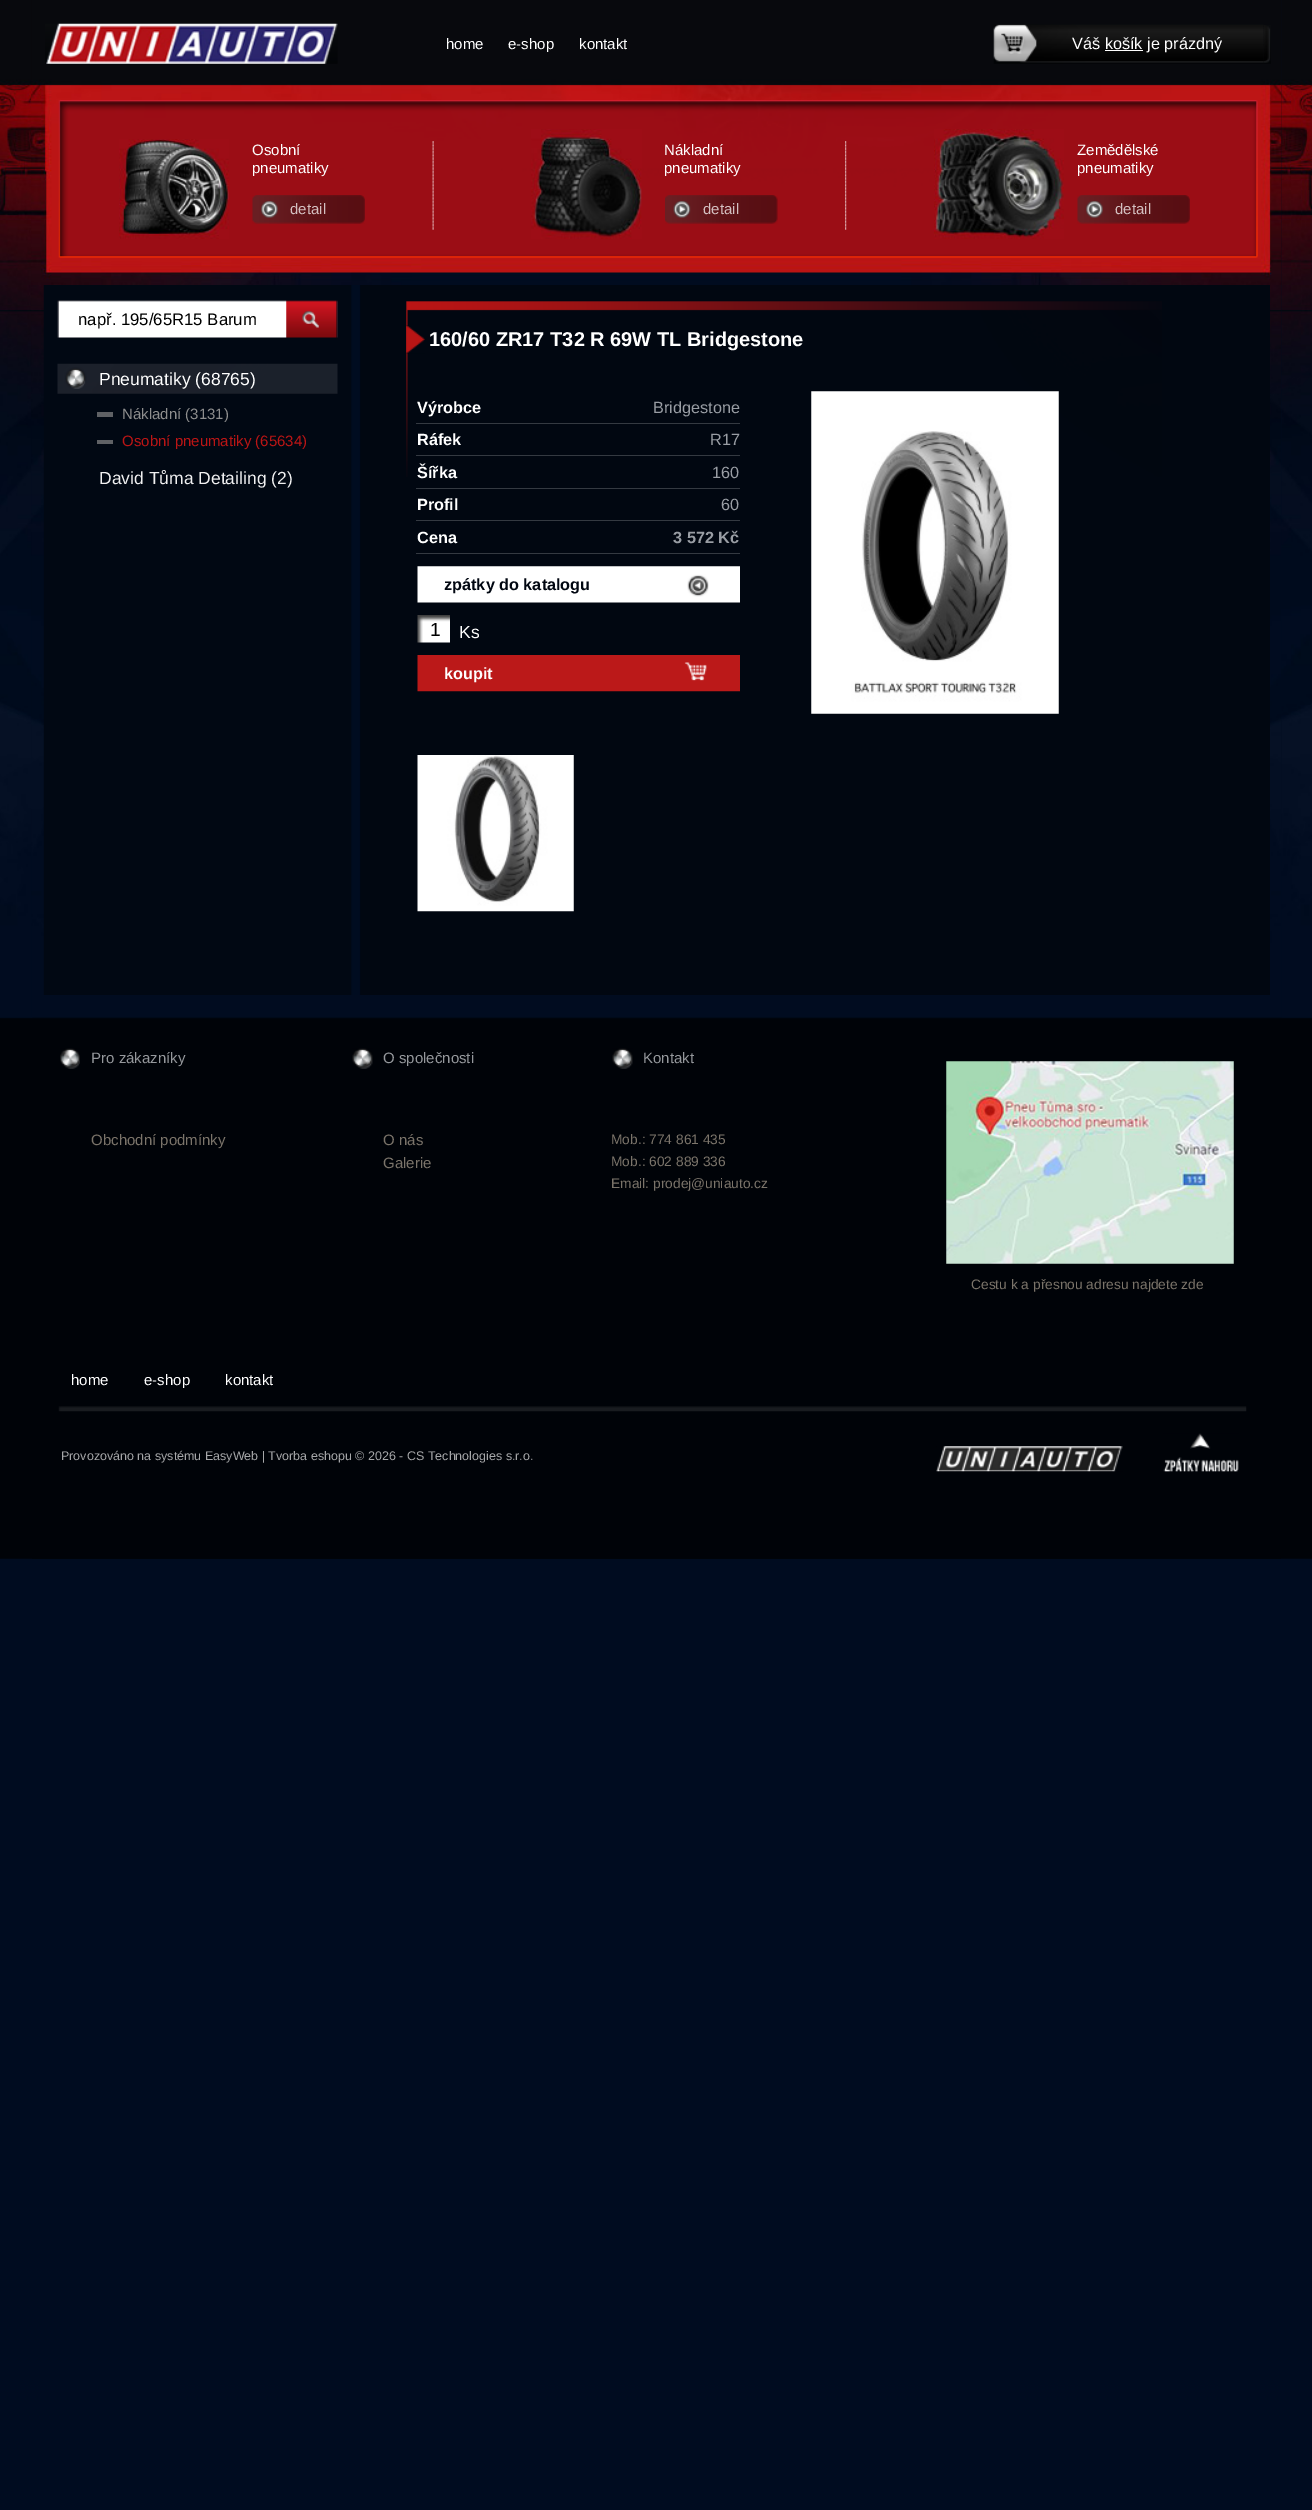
%!PS
<< /PageSize [1312 2510] >> setpagedevice
/rgb { 3 { 255 div 3 1 roll } repeat setrgbcolor } def
/font { [ exch dup neg 0 0 3 -1 roll 0 0 ] selectfont } def
/picture { 5 dict begin { /h /w /y /x /name } { exch def } forall
  gsave x y translate w h scale
  w h 8 [w 0 0 h 0 0] name (r) file false 3 colorimage grestore end } def
0 2510 translate 1 -1 scale
4 setmiterlimit
0 12 32 rgb
0 0 1312 2510 rectfill
(img/1.rgb) 0 0 32 285 picture
(img/15.rgb) 1281 0 31 285 picture
(img/2.rgb) 31 0 1251 285 picture
(img/3.rgb) 45 23 293 41 picture
(img/4.rgb) 1264 25 7 39 picture
(img/5.rgb) 993 24 271 40 picture
255 255 255 rgb
1105 50 38 1 rectfill
(img/6.rgb) 58 100 1200 158 picture
(img/7.rgb) 432 141 2 89 picture
(img/8.rgb) 119 139 110 100 picture
(img/9.rgb) 252 195 113 29 picture
(img/10.rgb) 845 141 2 89 picture
(img/11.rgb) 531 129 111 110 picture
(img/12.rgb) 665 195 113 29 picture
(img/13.rgb) 934 129 130 110 picture
(img/14.rgb) 1077 195 113 29 picture
(img/30.rgb) 0 1017 1312 542 picture
(img/31.rgb) 32 1017 1249 542 picture
(img/16.rgb) 0 285 33 733 picture
(img/17.rgb) 31 285 1250 733 picture
(img/18.rgb) 43 285 1227 710 picture
(img/19.rgb) 57 300 281 38 picture
(img/20.rgb) 286 300 52 38 picture
(img/21.rgb) 57 363 281 31 picture
95 97 101 rgb
97 412 16 5 rectfill
97 440 16 4 rectfill
(img/22.rgb) 406 301 756 176 picture
(img/23.rgb) 406 325 19 29 picture
[
  [416 423 324 1 52 57 65]
  [416 455 324 1 52 57 65]
  [416 488 324 1 52 57 65]
  [416 520 324 1 52 57 65]
  [416 553 324 1 52 57 65]
] { aload pop rgb rectfill } forall
(img/24.rgb) 417 566 323 37 picture
(img/25.rgb) 417 615 33 28 picture
(img/26.rgb) 417 655 323 37 picture
(img/27.rgb) 811 391 248 323 picture
(img/28.rgb) 417 755 157 157 picture
(img/29.rgb) 1281 285 31 733 picture
(img/32.rgb) 60 1048 20 21 picture
(img/33.rgb) 352 1048 21 21 picture
(img/33.rgb) 612 1048 21 21 picture
(img/34.rgb) 946 1061 288 203 picture
(img/35.rgb) 58 1406 1189 6 picture
(img/36.rgb) 936 1446 187 26 picture
(img/37.rgb) 1163 1433 76 39 picture
/LiberationSans-Regular 15 font
255 255 255 rgb
[
  [(home) 446 49]
  [(e-shop) 508 49]
  [(kontakt) 579 49]
] { aload pop moveto show } forall
/LiberationSans-Regular 16.25 font
1072 49 moveto (Váš košík je prázdný) show
/LiberationSans-Regular 15 font
252 155 moveto (Osobní) show
252 173 moveto (pneumatiky) show
212 192 193 rgb
290 214 moveto (detail) show
255 255 255 rgb
664 155 moveto (Nákladní) show
664 173 moveto (pneumatiky) show
212 192 193 rgb
703 214 moveto (detail) show
255 255 255 rgb
1077 155 moveto (Zemědělské) show
1077 173 moveto (pneumatiky) show
212 192 193 rgb
1115 214 moveto (detail) show
/LiberationSans-Regular 16.75 font
0 0 0 rgb
78 325 moveto (např. 195/65R15 Barum) show
/LiberationSans-Regular 17.5 font
255 255 255 rgb
99 385 moveto (Pneumatiky \(68765\)) show
/LiberationSans-Regular 15 font
142 142 142 rgb
122 419 moveto (Nákladní \(3131\)) show
187 21 21 rgb
122 446 moveto (Osobní pneumatiky \(65634\)) show
/LiberationSans-Regular 17.5 font
240 240 241 rgb
99 484 moveto (David Tůma Detailing \(2\)) show
/LiberationSans-Bold 20 font
255 255 255 rgb
429 346 moveto (160/60 ZR17 T32 R 69W TL Bridgestone) show
/LiberationSans-Bold 16.25 font
417 413 moveto (Výrobce) show
/LiberationSans-Regular 16.25 font
153 157 164 rgb
653 413 moveto (Bridgestone) show
/LiberationSans-Bold 16.25 font
255 255 255 rgb
417 445 moveto (Ráfek) show
/LiberationSans-Regular 16.25 font
153 157 164 rgb
710 445 moveto (R17) show
/LiberationSans-Bold 16.25 font
255 255 255 rgb
417 478 moveto (Šířka) show
/LiberationSans-Regular 16.25 font
153 157 164 rgb
712 478 moveto (160) show
/LiberationSans-Bold 16.25 font
255 255 255 rgb
417 510 moveto (Profil) show
/LiberationSans-Regular 16.25 font
153 157 164 rgb
721 510 moveto (60) show
/LiberationSans-Bold 16.25 font
255 255 255 rgb
417 543 moveto (Cena) show
153 157 164 rgb
673 543 moveto (3 572 Kč) show
1 7 17 rgb
444 590 moveto (zpátky do katalogu) show
/LiberationSans-Regular 19 font
0 0 0 rgb
430 636 moveto (1) show
/LiberationSans-Regular 17.5 font
255 255 255 rgb
459 638 moveto (Ks) show
/LiberationSans-Bold 16.25 font
444 679 moveto (koupit) show
/LiberationSans-Regular 15 font
149 152 156 rgb
91 1063 moveto (Pro zákazníky) show
123 116 106 rgb
91 1145 moveto (Obchodní podmínky) show
149 152 156 rgb
383 1063 moveto (O společnosti) show
123 116 106 rgb
383 1145 moveto (O nás) show
383 1168 moveto (Galerie) show
149 152 156 rgb
643 1063 moveto (Kontakt) show
/LiberationSans-Regular 13.75 font
123 116 106 rgb
[
  [(Mob.: 774 861 435) 611 1144]
  [(Mob.: 602 889 336) 611 1166]
  [(Email: prodej@uniauto.cz) 611 1188]
  [(Cestu k a přesnou adresu najdete zde) 971 1289]
] { aload pop moveto show } forall
/LiberationSans-Regular 15 font
255 255 255 rgb
[
  [(home) 71 1385]
  [(e-shop) 144 1385]
  [(kontakt) 225 1385]
] { aload pop moveto show } forall
/LiberationSans-Regular 12.5 font
166 167 169 rgb
61 1460 moveto (Provozováno na systému EasyWeb | Tvorba eshopu © 2026 - CS Technologies s.r.o.) show
showpage
